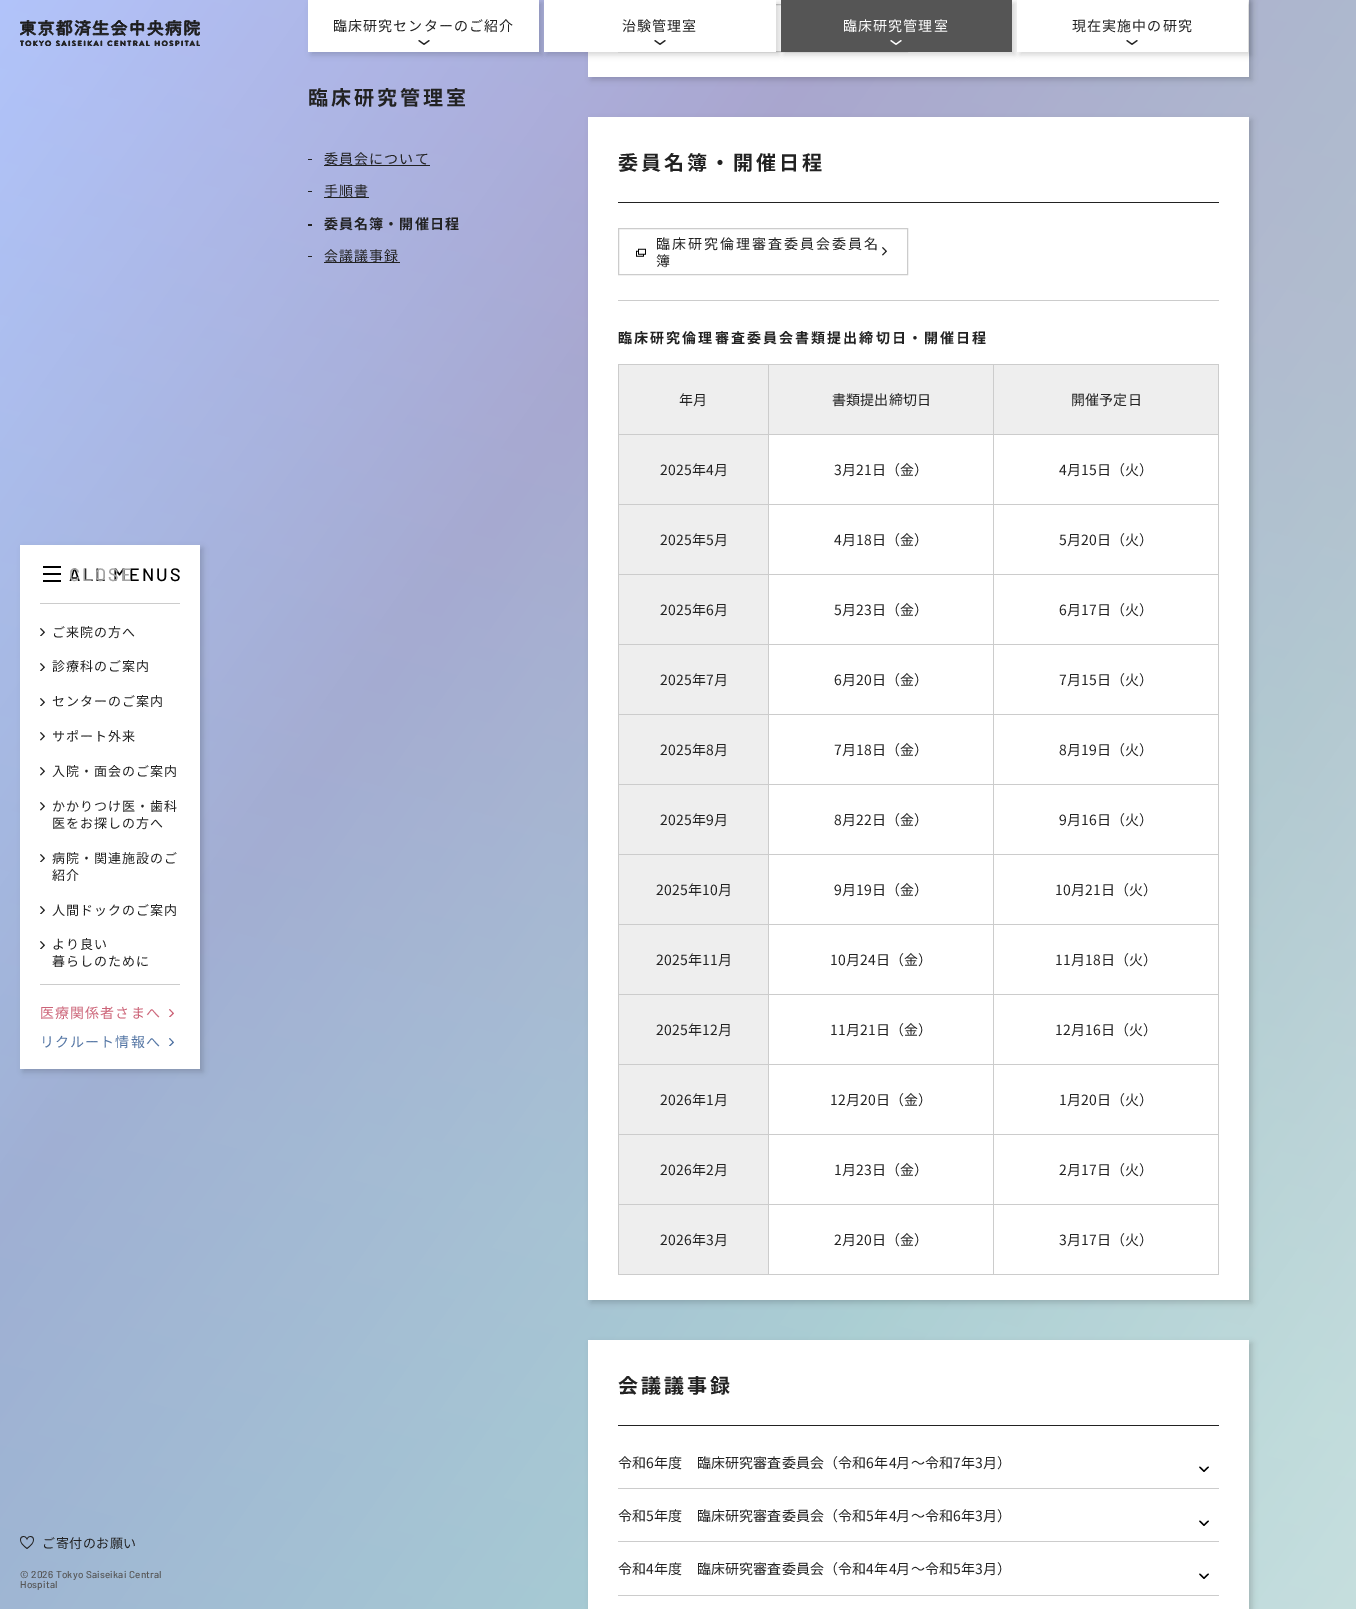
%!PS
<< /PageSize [1356 1609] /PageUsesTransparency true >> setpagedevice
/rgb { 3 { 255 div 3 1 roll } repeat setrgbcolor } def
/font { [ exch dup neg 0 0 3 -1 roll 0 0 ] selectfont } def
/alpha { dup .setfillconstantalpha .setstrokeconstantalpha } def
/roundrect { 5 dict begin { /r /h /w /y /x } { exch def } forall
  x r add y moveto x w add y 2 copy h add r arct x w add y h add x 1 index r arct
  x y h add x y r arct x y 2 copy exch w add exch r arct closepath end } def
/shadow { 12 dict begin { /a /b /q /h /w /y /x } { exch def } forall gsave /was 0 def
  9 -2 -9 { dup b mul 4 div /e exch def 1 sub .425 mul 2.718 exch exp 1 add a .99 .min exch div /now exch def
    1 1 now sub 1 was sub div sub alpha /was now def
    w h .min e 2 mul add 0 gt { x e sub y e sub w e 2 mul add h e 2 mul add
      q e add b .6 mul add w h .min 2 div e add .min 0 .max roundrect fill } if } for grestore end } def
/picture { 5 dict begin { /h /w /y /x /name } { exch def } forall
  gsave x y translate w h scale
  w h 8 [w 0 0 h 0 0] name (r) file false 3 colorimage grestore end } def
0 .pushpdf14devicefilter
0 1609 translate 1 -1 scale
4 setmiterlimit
255 255 255 rgb
0 0 1356 1609 rectfill
gsave 0 0 moveto 1356 0 lineto 1356 1609 lineto 0 1609 lineto closepath clip newpath
<< /ShadingType 2 /ColorSpace /DeviceRGB /Coords [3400 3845 -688 982] /Extend [true true] /Function << /FunctionType 3 /Domain [0 1] /Functions [<< /FunctionType 2 /Domain [0 1] /C0 [0.498 0.612 0.82] /C1 [0.561 0.549 0.757] /N 1 >> << /FunctionType 2 /Domain [0 1] /C0 [0.561 0.549 0.757] /C1 [0.608 0.631 0.757] /N 1 >> << /FunctionType 2 /Domain [0 1] /C0 [0.608 0.631 0.757] /C1 [0.784 0.808 0.855] /N 1 >> << /FunctionType 2 /Domain [0 1] /C0 [0.784 0.808 0.855] /C1 [0.8 0.855 0.827] /N 1 >> << /FunctionType 2 /Domain [0 1] /C0 [0.8 0.855 0.827] /C1 [0.608 0.737 0.757] /N 1 >> << /FunctionType 2 /Domain [0 1] /C0 [0.608 0.737 0.757] /C1 [0.549 0.569 0.757] /N 1 >> << /FunctionType 2 /Domain [0 1] /C0 [0.549 0.569 0.757] /C1 [0.596 0.737 1] /N 1 >>] /Bounds [0.14 0.29 0.43 0.57 0.71 0.86] /Encode [0 1 0 1 0 1 0 1 0 1 0 1 0 1] >> >> shfill grestore
0.3 alpha
gsave 0 0 moveto 1356 0 lineto 1356 1609 lineto 0 1609 lineto closepath clip newpath
<< /ShadingType 2 /ColorSpace /DeviceRGB /Coords [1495 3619 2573 -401] /Extend [true true] /Function << /FunctionType 3 /Domain [0 1] /Functions [<< /FunctionType 2 /Domain [0 1] /C0 [0.894 0.937 0.914] /C1 [0.706 0.91 1] /N 1 >> << /FunctionType 2 /Domain [0 1] /C0 [0.706 0.91 1] /C1 [0.816 0.976 1] /N 1 >> << /FunctionType 2 /Domain [0 1] /C0 [0.816 0.976 1] /C1 [0.937 0.839 0.937] /N 1 >> << /FunctionType 2 /Domain [0 1] /C0 [0.937 0.839 0.937] /C1 [0.894 0.937 0.914] /N 1 >>] /Bounds [0.25 0.5 0.75] /Encode [0 1 0 1 0 1 0 1] >> >> shfill grestore
1 alpha
(img/1.rgb) 20 20 180 26 picture
0 0 0 rgb
23 548 180 524 0 3 0.16 shadow
[
  [20 545 180 524 255 255 255]
  [43 566 18 2 0 0 0]
  [43 573 18 2 0 0 0]
  [43 580 18 2 0 0 0]
  [40 603 140 1 204 204 204]
] { aload pop rgb rectfill } forall
(img/2.rgb) 40 628 5 8 picture
(img/2.rgb) 40 663 5 8 picture
(img/2.rgb) 40 698 5 8 picture
(img/3.rgb) 40 732 5 9 picture
(img/3.rgb) 40 767 5 9 picture
(img/3.rgb) 40 802 5 9 picture
(img/2.rgb) 40 854 5 8 picture
(img/2.rgb) 40 906 5 8 picture
(img/2.rgb) 40 941 5 8 picture
40 984 140 1 rectfill
(img/4.rgb) 169 1009 5 8 picture
(img/5.rgb) 169 1038 5 8 picture
(img/6.rgb) 20 1536 14 13 picture
0 0 0 rgb
311 3 231 52 0 3 0.16 shadow
255 255 255 rgb
308 0 231 52 rectfill
(img/7.rgb) 418 40 12 5 picture
0 0 0 rgb
591 -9 661 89 0 3 0.16 shadow
255 255 255 rgb
588 0 661 77 rectfill
204 204 204 rgb
618.5 4.5 289 47 rectstroke
0 0 0 rgb
547 3 232 52 0 3 0.16 shadow
255 255 255 rgb
544 0 232 52 rectfill
(img/7.rgb) 654 40 12 5 picture
0 0 0 rgb
784 3 231 52 0 3 0.16 shadow
85 85 85 rgb
781 0 231 52 rectfill
(img/8.rgb) 890 40 12 5 picture
0 0 0 rgb
1020 3 231 52 0 3 0.16 shadow
255 255 255 rgb
1017 0 231 52 rectfill
(img/7.rgb) 1126 40 12 5 picture
[
  [308 159 4 1 34 34 34]
  [324 165 106 1 34 34 34]
  [308 191 4 1 34 34 34]
  [324 197 45 1 34 34 34]
  [308 224 4 2 34 34 34]
  [308 256 4 1 34 34 34]
  [324 262 76 1 34 34 34]
] { aload pop rgb rectfill } forall
0 0 0 rgb
591 120 661 1183 0 3 0.16 shadow
255 255 255 rgb
588 117 661 1183 rectfill
34 34 34 rgb
618 202 601 1 rectfill
204 204 204 rgb
618.5 228.5 289 46 rectstroke
(img/9.rgb) 636 248 10 9 picture
(img/3.rgb) 882 247 5 9 picture
[
  [618 300 601 1 204 204 204]
  [619 365 149 69 238 238 238]
  [993 364 226 1 204 204 204]
  [993 434 226 1 204 204 204]
  [993 504 226 1 204 204 204]
  [993 574 226 1 204 204 204]
  [993 644 226 1 204 204 204]
  [993 714 226 1 204 204 204]
  [993 784 226 1 204 204 204]
  [993 854 226 1 204 204 204]
  [993 924 226 1 204 204 204]
  [993 994 226 1 204 204 204]
  [993 1064 226 1 204 204 204]
  [993 1134 226 1 204 204 204]
  [993 1204 226 1 204 204 204]
  [1218 1204 1 71 204 204 204]
  [993 1274 226 1 204 204 204]
  [993 1204 1 71 204 204 204]
  [768 1204 226 1 204 204 204]
  [993 1134 1 71 204 204 204]
  [768 1134 226 1 204 204 204]
  [993 1064 1 71 204 204 204]
  [768 1064 226 1 204 204 204]
  [993 994 1 71 204 204 204]
  [768 994 226 1 204 204 204]
  [993 924 1 71 204 204 204]
  [768 924 226 1 204 204 204]
  [993 854 1 71 204 204 204]
  [768 854 226 1 204 204 204]
  [993 784 1 71 204 204 204]
  [768 784 226 1 204 204 204]
  [993 714 1 71 204 204 204]
  [768 714 226 1 204 204 204]
  [993 644 1 71 204 204 204]
  [768 644 226 1 204 204 204]
  [993 574 1 71 204 204 204]
  [768 574 226 1 204 204 204]
  [993 504 1 71 204 204 204]
  [768 504 226 1 204 204 204]
  [993 434 1 71 204 204 204]
  [768 434 226 1 204 204 204]
  [993 364 1 71 204 204 204]
  [768 364 226 1 204 204 204]
  [768 1274 226 1 204 204 204]
  [768 1204 1 71 204 204 204]
  [618 1204 151 1 204 204 204]
  [768 1134 1 71 204 204 204]
  [618 1134 151 1 204 204 204]
  [768 1064 1 71 204 204 204]
  [618 1064 151 1 204 204 204]
  [768 994 1 71 204 204 204]
  [618 994 151 1 204 204 204]
  [768 924 1 71 204 204 204]
  [618 924 151 1 204 204 204]
  [768 854 1 71 204 204 204]
  [618 854 151 1 204 204 204]
  [768 784 1 71 204 204 204]
  [618 784 151 1 204 204 204]
  [768 714 1 71 204 204 204]
  [618 714 151 1 204 204 204]
  [768 644 1 71 204 204 204]
  [618 644 151 1 204 204 204]
  [768 574 1 71 204 204 204]
  [618 574 151 1 204 204 204]
  [768 504 1 71 204 204 204]
  [618 504 151 1 204 204 204]
  [768 434 1 71 204 204 204]
  [618 434 151 1 204 204 204]
  [768 364 1 71 204 204 204]
  [618 364 151 1 204 204 204]
  [618 1274 151 1 204 204 204]
  [618 1204 1 71 204 204 204]
  [618 1134 1 71 204 204 204]
  [618 1064 1 71 204 204 204]
  [618 994 1 71 204 204 204]
  [618 924 1 71 204 204 204]
  [618 854 1 71 204 204 204]
  [618 784 1 71 204 204 204]
  [618 714 1 71 204 204 204]
  [618 644 1 71 204 204 204]
  [618 574 1 71 204 204 204]
  [618 504 1 71 204 204 204]
  [618 434 1 71 204 204 204]
  [618 364 1 71 204 204 204]
  [769 365 224 69 238 238 238]
  [994 365 224 69 238 238 238]
  [1218 1134 1 71 204 204 204]
  [1218 1064 1 71 204 204 204]
  [1218 994 1 71 204 204 204]
  [1218 924 1 71 204 204 204]
  [1218 854 1 71 204 204 204]
  [1218 784 1 71 204 204 204]
  [1218 714 1 71 204 204 204]
  [1218 644 1 71 204 204 204]
  [1218 574 1 71 204 204 204]
  [1218 504 1 71 204 204 204]
  [1218 434 1 71 204 204 204]
  [1218 364 1 71 204 204 204]
  [619 435 149 69 238 238 238]
  [619 505 149 69 238 238 238]
  [619 575 149 69 238 238 238]
  [619 645 149 69 238 238 238]
  [619 715 149 69 238 238 238]
  [619 785 149 69 238 238 238]
  [619 855 149 69 238 238 238]
  [619 925 149 69 238 238 238]
  [619 995 149 69 238 238 238]
  [619 1065 149 69 238 238 238]
  [619 1135 149 69 238 238 238]
  [619 1205 149 69 238 238 238]
] { aload pop rgb rectfill } forall
0 0 0 rgb
591 1343 661 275 0 3 0.16 shadow
[
  [588 1340 661 269 255 255 255]
  [618 1425 601 1 34 34 34]
  [618 1488 601 1 204 204 204]
] { aload pop rgb rectfill } forall
(img/10.rgb) 1199 1466 10 6 picture
618 1541 601 1 rectfill
(img/10.rgb) 1199 1520 10 6 picture
618 1595 601 1 rectfill
(img/10.rgb) 1199 1573 10 6 picture
/Barlow-Medium 18 font
0 0 0 rgb
69 581 moveto 2.25 0 (ALL MENUS) ashow
164 164 164 rgb
69 581 moveto 2.25 0 (CLOSE) ashow
/NotoSansJP-Regular 13 font
34 34 34 rgb
52 637 moveto 1 0 (ご来院の方へ) ashow
52 671 moveto 1 0 (診療科のご案内) ashow
52 706 moveto 1 0 (センターのご案内) ashow
52 741 moveto 1 0 (サポート外来) ashow
52 776 moveto 1 0 (入院・面会のご案内) ashow
52 811 moveto 1 0 (かかりつけ医・歯科) ashow
52 828 moveto 1 0 (医をお探しの方へ) ashow
52 863 moveto 1 0 (病院・関連施設のご) ashow
52 880 moveto 1 0 (紹介) ashow
52 915 moveto 1 0 (人間ドックのご案内) ashow
52 949 moveto 1 0 (より良い) ashow
52 966 moveto 1 0 (暮らしのために) ashow
/NotoSansJP-Regular 14 font
204 100 120 rgb
40 1018 moveto 1.1 0 (医療関係者さまへ) ashow
82 116 163 rgb
40 1047 moveto 1.1 0 (リクルート情報へ) ashow
/NotoSansJP-Regular 13 font
34 34 34 rgb
42 1548 moveto 0.5 0 (ご寄付のお願い) ashow
/Barlow-Medium 10 font
85 85 85 rgb
20 1578 moveto 0.2 0 (© 2026 Tokyo Saiseikai Central) ashow
20 1588 moveto 0.2 0 (Hospital) ashow
/NotoSansJP-Regular 14 font
34 34 34 rgb
333 31 moveto 1.1 0 (臨床研究センターのご紹介) ashow
622 31 moveto 1.1 0 (治験管理室) ashow
255 255 255 rgb
843 31 moveto 1.1 0 (臨床研究管理室) ashow
34 34 34 rgb
1072 31 moveto 1.1 0 (現在実施中の研究) ashow
/NotoSansJP-Bold 20 font
308 105 moveto 3 0 (臨床研究管理室) ashow
/NotoSansJP-Regular 14 font
324 164 moveto 1.1 0 (委員会について) ashow
324 196 moveto 1.1 0 (手順書) ashow
/NotoSansJP-Bold 14 font
324 229 moveto 1.1 0 (委員名簿・開催日程) ashow
/NotoSansJP-Regular 14 font
324 261 moveto 1.1 0 (会議議事録) ashow
/NotoSansJP-Bold 20 font
618 170 moveto 3 0 (委員名簿・開催日程) ashow
/NotoSansJP-Regular 14 font
656 249 moveto 2 0 (臨床研究倫理審査委員会委員名) ashow
656 266 moveto 1.1 0 (簿) ashow
/NotoSansJP-Bold 14 font
618 343 moveto 2.1 0 (臨床研究倫理審査委員会書類提出締切日・開催日程) ashow
/NotoSansJP-Regular 14 font
679 405 moveto 0.15 0 (年月) ashow
832 405 moveto 0.15 0 (書類提出締切日) ashow
1071 405 moveto 0.15 0 (開催予定日) ashow
660 475 moveto 0.15 0 (2025年4月) ashow
834 475 moveto 0.15 0 (3月21日（金）) ashow
1059 475 moveto 0.15 0 (4月15日（火）) ashow
660 545 moveto 0.15 0 (2025年5月) ashow
834 545 moveto 0.15 0 (4月18日（金）) ashow
1059 545 moveto 0.15 0 (5月20日（火）) ashow
660 615 moveto 0.15 0 (2025年6月) ashow
834 615 moveto 0.15 0 (5月23日（金）) ashow
1059 615 moveto 0.15 0 (6月17日（火）) ashow
660 685 moveto 0.15 0 (2025年7月) ashow
834 685 moveto 0.15 0 (6月20日（金）) ashow
1059 685 moveto 0.15 0 (7月15日（火）) ashow
660 755 moveto 0.15 0 (2025年8月) ashow
834 755 moveto 0.15 0 (7月18日（金）) ashow
1059 755 moveto 0.15 0 (8月19日（火）) ashow
660 825 moveto 0.15 0 (2025年9月) ashow
834 825 moveto 0.15 0 (8月22日（金）) ashow
1059 825 moveto 0.15 0 (9月16日（火）) ashow
656 895 moveto 0.15 0 (2025年10月) ashow
834 895 moveto 0.15 0 (9月19日（金）) ashow
1055 895 moveto 0.15 0 (10月21日（火）) ashow
656 965 moveto 0.15 0 (2025年11月) ashow
830 965 moveto 0.15 0 (10月24日（金）) ashow
1055 965 moveto 0.15 0 (11月18日（火）) ashow
656 1035 moveto 0.15 0 (2025年12月) ashow
830 1035 moveto 0.15 0 (11月21日（金）) ashow
1055 1035 moveto 0.15 0 (12月16日（火）) ashow
660 1105 moveto 0.15 0 (2026年1月) ashow
830 1105 moveto 0.15 0 (12月20日（金）) ashow
1059 1105 moveto 0.15 0 (1月20日（火）) ashow
660 1175 moveto 0.15 0 (2026年2月) ashow
834 1175 moveto 0.15 0 (1月23日（金）) ashow
1059 1175 moveto 0.15 0 (2月17日（火）) ashow
660 1245 moveto 0.15 0 (2026年3月) ashow
834 1245 moveto 0.15 0 (2月20日（金）) ashow
1059 1245 moveto 0.15 0 (3月17日（火）) ashow
/NotoSansJP-Bold 20 font
618 1393 moveto 3 0 (会議議事録) ashow
/NotoSansJP-Regular 14 font
618 1468 moveto 0.15 0 (令和6年度　臨床研究審査委員会（令和6年4月～令和7年3月）) ashow
618 1521 moveto 0.15 0 (令和5年度　臨床研究審査委員会（令和5年4月～令和6年3月）) ashow
618 1574 moveto 0.15 0 (令和4年度　臨床研究審査委員会（令和4年4月～令和5年3月）) ashow
.poppdf14devicefilter showpage
